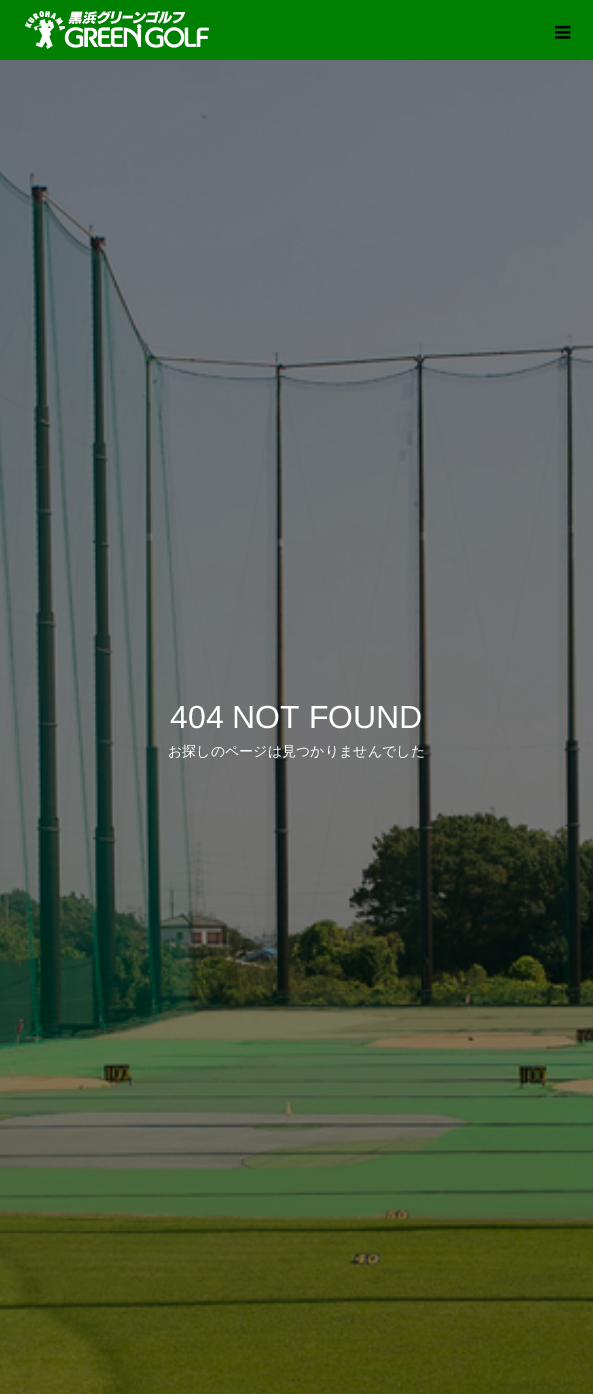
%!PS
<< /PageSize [593 1394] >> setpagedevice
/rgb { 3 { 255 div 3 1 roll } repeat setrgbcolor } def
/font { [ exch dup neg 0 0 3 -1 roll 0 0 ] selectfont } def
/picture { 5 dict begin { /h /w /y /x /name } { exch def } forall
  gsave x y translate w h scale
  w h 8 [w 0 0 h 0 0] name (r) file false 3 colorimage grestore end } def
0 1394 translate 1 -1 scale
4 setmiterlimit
0 128 0 rgb
0 0 593 1394 rectfill
(img/1.rgb) 24 11 185 38 picture
(img/2.rgb) 555 25 16 14 picture
(img/3.rgb) 0 60 593 1334 picture
/LiberationSans-Regular 32 font
255 255 255 rgb
170 728 moveto (404 NOT FOUND) show
/WenQuanYiZenHei-Medium 14 font
168 756 moveto (お探しのページは見つかりませんでした) show
showpage
